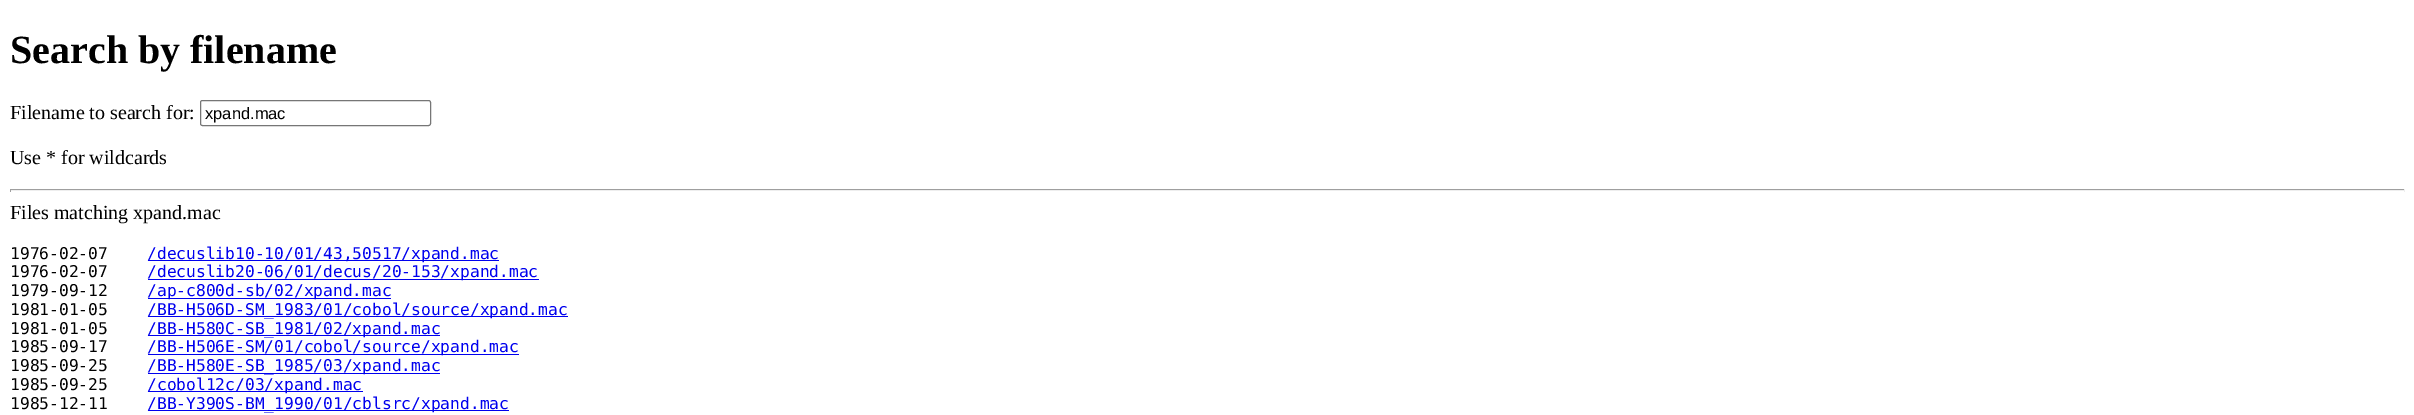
%!PS
<< /PageSize [2414 415] >> setpagedevice
/rgb { 3 { 255 div 3 1 roll } repeat setrgbcolor } def
/font { [ exch dup neg 0 0 3 -1 roll 0 0 ] selectfont } def
/roundrect { 5 dict begin { /r /h /w /y /x } { exch def } forall
  x r add y moveto x w add y 2 copy h add r arct x w add y h add x 1 index r arct
  x y h add x y r arct x y 2 copy exch w add exch r arct closepath end } def
0 415 translate 1 -1 scale
4 setmiterlimit
255 255 255 rgb
0 0 2414 415 rectfill
118 118 118 rgb
200.5 100.5 230 25 2 roundrect stroke
[
  [10 189 2395 1 159 159 159]
  [2404 189 1 3 238 238 238]
  [10 190 2395 1 238 238 238]
  [10 189 1 3 159 159 159]
  [148 260 351 1 0 0 238]
  [148 279 391 1 0 0 238]
  [148 298 243 1 0 0 238]
  [148 316 420 1 0 0 238]
  [148 335 292 1 0 0 238]
  [148 354 371 1 0 0 238]
  [148 373 292 1 0 0 238]
  [148 391 215 1 0 0 238]
  [148 410 361 1 0 0 238]
] { aload pop rgb rectfill } forall
/LiberationSerif-Bold 40 font
0 0 0 rgb
10 63 moveto (Search by filename) show
/LiberationSerif-Regular 20 font
10 119 moveto (Filename to search for:) show
/LiberationSans-Regular 16.5 font
205 119 moveto (xpand.mac) show
/LiberationSerif-Regular 20 font
10 164 moveto (Use * for wildcards) show
10 219 moveto (Files matching xpand.mac) show
/DejaVuSansMono-Regular 16.25 font
10 259 moveto (1976-02-07) show
0 0 238 rgb
147 259 moveto (/decuslib10-10/01/43,50517/xpand.mac) show
0 0 0 rgb
10 277 moveto (1976-02-07) show
0 0 238 rgb
147 277 moveto (/decuslib20-06/01/decus/20-153/xpand.mac) show
0 0 0 rgb
10 296 moveto (1979-09-12) show
0 0 238 rgb
147 296 moveto (/ap-c800d-sb/02/xpand.mac) show
0 0 0 rgb
10 315 moveto (1981-01-05) show
0 0 238 rgb
147 315 moveto (/BB-H506D-SM_1983/01/cobol/source/xpand.mac) show
0 0 0 rgb
10 334 moveto (1981-01-05) show
0 0 238 rgb
147 334 moveto (/BB-H580C-SB_1981/02/xpand.mac) show
0 0 0 rgb
10 352 moveto (1985-09-17) show
0 0 238 rgb
147 352 moveto (/BB-H506E-SM/01/cobol/source/xpand.mac) show
0 0 0 rgb
10 371 moveto (1985-09-25) show
0 0 238 rgb
147 371 moveto (/BB-H580E-SB_1985/03/xpand.mac) show
0 0 0 rgb
10 390 moveto (1985-09-25) show
0 0 238 rgb
147 390 moveto (/cobol12c/03/xpand.mac) show
0 0 0 rgb
10 409 moveto (1985-12-11) show
0 0 238 rgb
147 409 moveto (/BB-Y390S-BM_1990/01/cblsrc/xpand.mac) show
showpage
